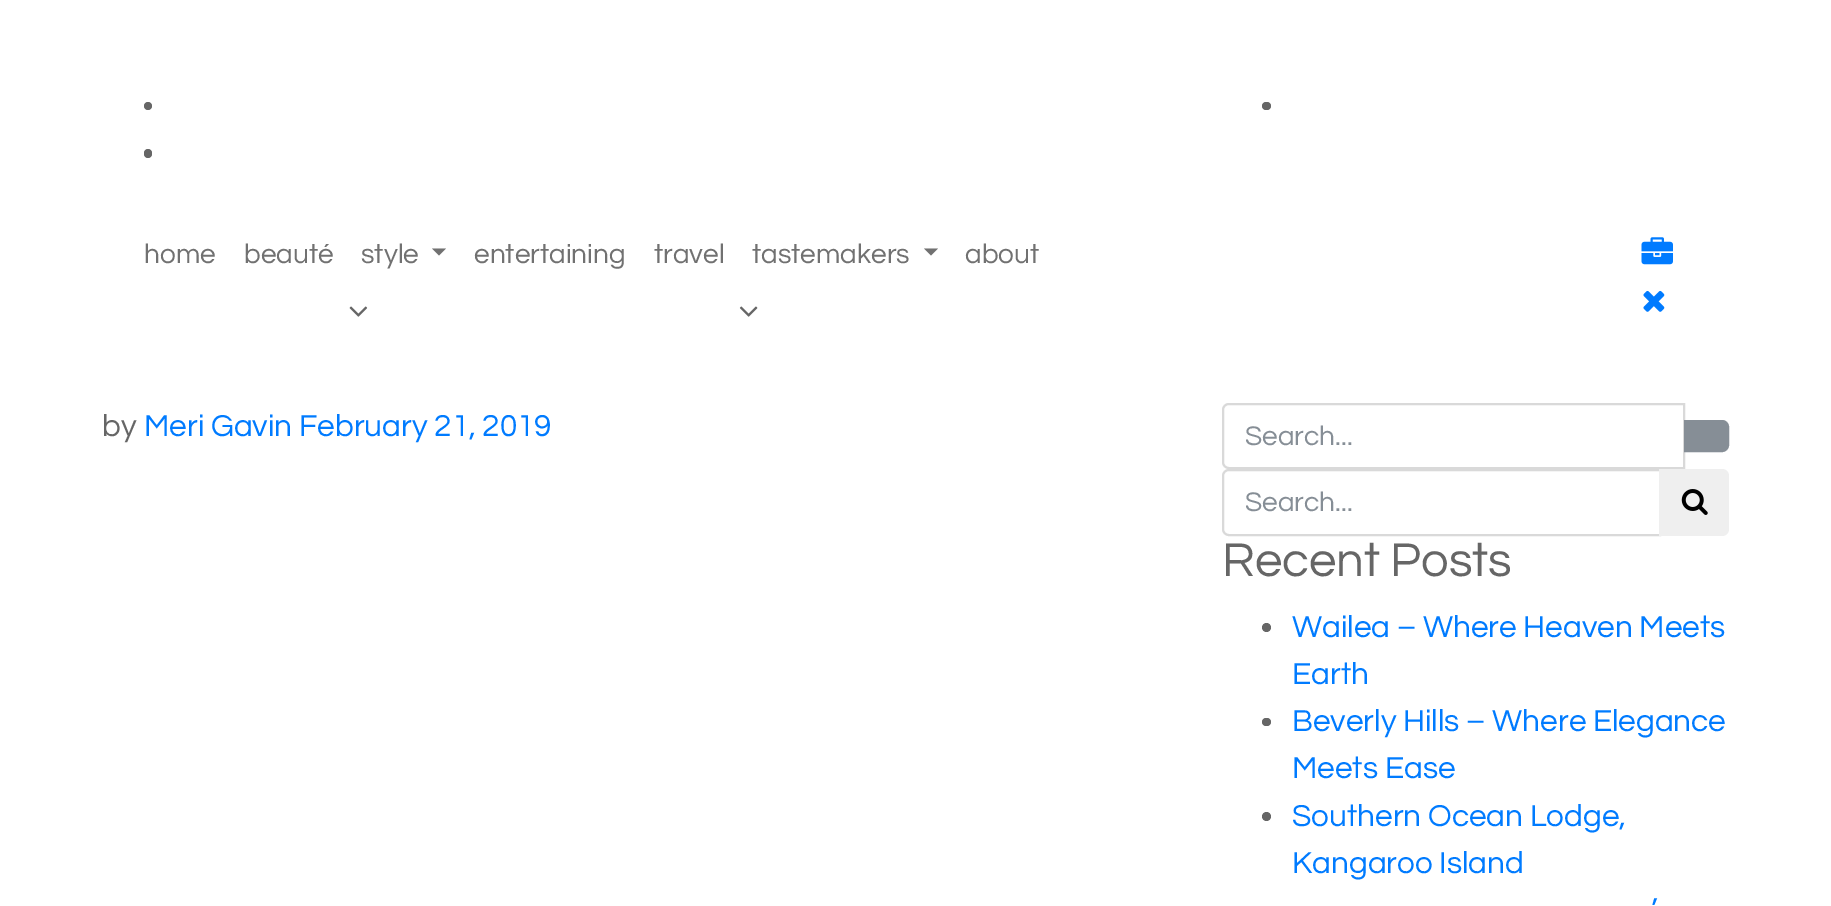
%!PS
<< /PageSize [1831 906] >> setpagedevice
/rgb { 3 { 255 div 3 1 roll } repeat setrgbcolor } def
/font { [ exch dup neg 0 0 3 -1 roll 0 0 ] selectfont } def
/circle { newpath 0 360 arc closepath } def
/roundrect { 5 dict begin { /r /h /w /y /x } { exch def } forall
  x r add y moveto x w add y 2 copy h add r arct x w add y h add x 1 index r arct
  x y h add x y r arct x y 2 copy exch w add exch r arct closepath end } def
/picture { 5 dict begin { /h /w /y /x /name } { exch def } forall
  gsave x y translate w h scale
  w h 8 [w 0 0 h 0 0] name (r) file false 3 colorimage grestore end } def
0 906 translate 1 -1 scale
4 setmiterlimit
255 255 255 rgb
0 0 1831 906 rectfill
102 102 102 rgb
148 106 4 circle fill
144 149 8 9 4 roundrect fill
1262 102 9 8 4 roundrect fill
113 113 113 rgb
432 248.5 moveto 446 248.5 lineto 439 255.5 lineto closepath fill
(img/1.rgb) 349 306 19 11 picture
924 248.5 moveto 938 248.5 lineto 931 255.5 lineto closepath fill
(img/2.rgb) 739 306 19 11 picture
(img/3.rgb) 1641 237 32 28 picture
(img/4.rgb) 1643 290 22 22 picture
217 217 217 rgb
2 setlinewidth
1229 404 moveto 1684 404 lineto 1684 468 lineto 1229 468 lineto 1225.5 468 1223 465.5 1223 462 curveto 1223 410 lineto 1223 406.5 1225.5 404 1229 404 curveto closepath stroke
134 142 150 rgb
1685 421 moveto 1722 421 lineto 1725.5 421 1728 423.5 1728 427 curveto 1728 445 lineto 1728 448.5 1725.5 451 1722 451 curveto 1685 451 lineto closepath gsave fill grestore
stroke
217 217 217 rgb
1229 470 moveto 1660 470 lineto 1660 535 lineto 1229 535 lineto 1225.5 535 1223 532.5 1223 529 curveto 1223 476 lineto 1223 472.5 1225.5 470 1229 470 curveto closepath stroke
239 239 239 rgb
1659 469 moveto 1722 469 lineto 1726 469 1729 472 1729 476 curveto 1729 529 lineto 1729 533 1726 536 1722 536 curveto 1659 536 lineto closepath fill
(img/5.rgb) 1681 489 27 26 picture
102 102 102 rgb
1266.5 627.5 4.5 circle fill
1262 718 9 8 4 roundrect fill
1266.5 816.5 4.5 circle fill
/Questrial-Regular 28 font
113 113 113 rgb
[
  [(home) 144 263]
  [(beauté) 244 263]
  [(style) 361 263]
  [(entertaining) 474 263]
  [(travel) 654 263]
  [(tastemakers) 752 263]
  [(about) 965 263]
] { aload pop moveto show } forall
/Questrial-Regular 31.5 font
102 102 102 rgb
102 436 moveto (by) show
0 123 255 rgb
144 436 moveto (Meri Gavin February 21, 2019) show
/Questrial-Regular 28 font
134 142 150 rgb
1245 445 moveto (Search...) show
1245 511 moveto (Search...) show
/Questrial-Regular 49 font
102 102 102 rgb
1222 576 moveto (Recent Posts) show
/Questrial-Regular 31.5 font
0 123 255 rgb
[
  [(Wailea – Where Heaven Meets) 1292 637]
  [(Earth) 1292 684]
  [(Beverly Hills – Where Elegance) 1292 731]
  [(Meets Ease) 1292 778]
  [(Southern Ocean Lodge,) 1292 826]
  [(Kangaroo Island) 1292 873]
  [(’) 1651 920]
] { aload pop moveto show } forall
showpage
